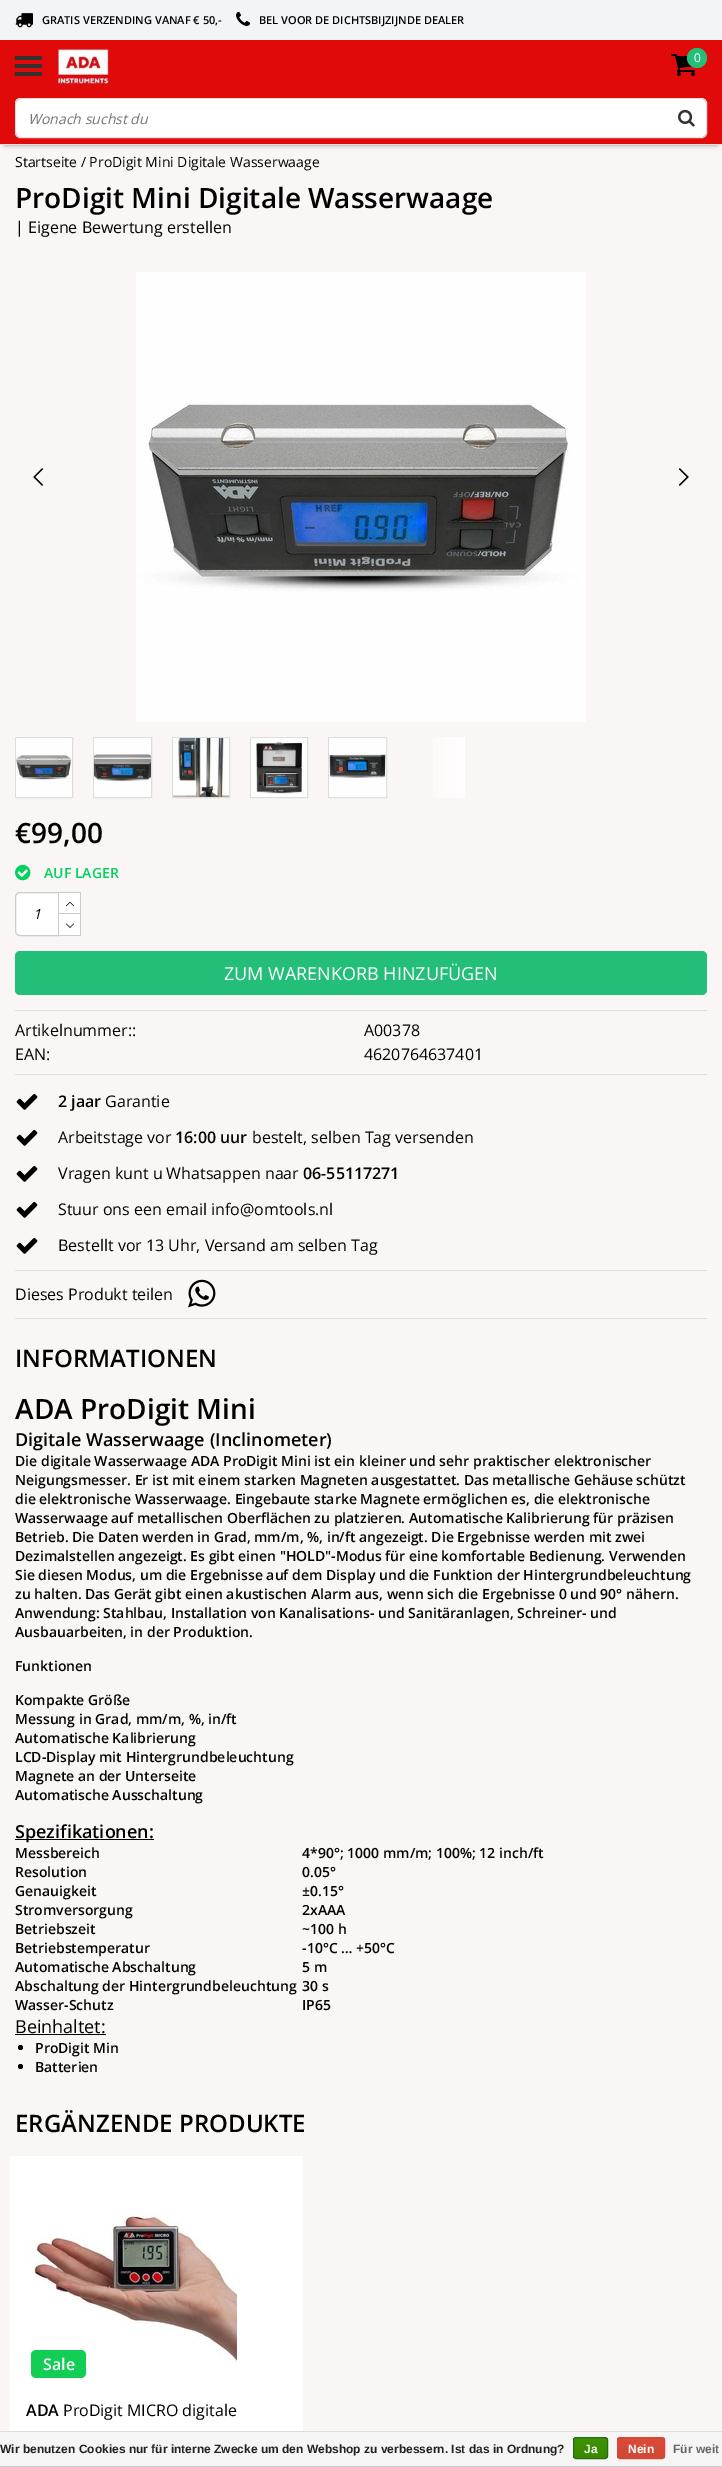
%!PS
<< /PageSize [722 2467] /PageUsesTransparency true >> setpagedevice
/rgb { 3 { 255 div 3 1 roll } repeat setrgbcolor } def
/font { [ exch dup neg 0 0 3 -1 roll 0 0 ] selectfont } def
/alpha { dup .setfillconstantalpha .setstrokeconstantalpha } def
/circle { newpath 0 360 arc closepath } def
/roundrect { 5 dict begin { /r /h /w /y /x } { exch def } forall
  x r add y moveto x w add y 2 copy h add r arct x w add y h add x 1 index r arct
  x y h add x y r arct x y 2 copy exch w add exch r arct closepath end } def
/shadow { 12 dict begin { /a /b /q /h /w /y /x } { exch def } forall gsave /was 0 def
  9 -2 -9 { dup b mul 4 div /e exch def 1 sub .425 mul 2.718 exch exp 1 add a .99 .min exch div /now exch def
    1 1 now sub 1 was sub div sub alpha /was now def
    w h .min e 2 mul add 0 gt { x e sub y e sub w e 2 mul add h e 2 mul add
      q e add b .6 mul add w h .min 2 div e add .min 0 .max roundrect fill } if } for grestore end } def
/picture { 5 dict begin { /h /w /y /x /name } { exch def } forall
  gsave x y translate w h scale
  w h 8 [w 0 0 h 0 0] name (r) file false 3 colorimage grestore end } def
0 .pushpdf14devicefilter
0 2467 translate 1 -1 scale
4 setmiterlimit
251 246 246 rgb
0 0 722 2467 rectfill
243 244 246 rgb
0 0 722 40 rectfill
(img/1.rgb) 15 13 18 15 picture
(img/2.rgb) 236 11 15 15 picture
0 0 0 rgb
5 50 712 95 0 2.5 0.4 shadow
[
  [0 40 722 104 225 10 10]
  [0 144 722 1 221 221 221]
  [15 56 27 4 52 49 47]
  [15 64 27 4 52 49 47]
  [15 72 27 4 52 49 47]
] { aload pop rgb rectfill } forall
(img/3.rgb) 57 48 52 36 picture
(img/4.rgb) 671 54 24 22 picture
35 191 121 rgb
697 58 10 circle fill
221 221 221 rgb
15.5 98.5 691 39 4.5 roundrect stroke
255 255 255 rgb
16 99 690 38 5 roundrect fill
(img/5.rgb) 678 109 17 18 picture
(img/6.rgb) 136 272 450 450 picture
(img/7.rgb) 33 468 11 18 picture
(img/8.rgb) 678 468 11 18 picture
221 221 221 rgb
15.5 737.5 57 60 rectstroke
(img/9.rgb) 16 738 56 59 picture
93.5 737.5 58 60 rectstroke
(img/10.rgb) 94 738 57 59 picture
172.5 737.5 57 60 rectstroke
(img/11.rgb) 173 738 56 59 picture
250.5 737.5 57 60 rectstroke
(img/12.rgb) 251 738 56 59 picture
328.5 737.5 58 60 rectstroke
(img/13.rgb) 329 738 58 60 picture
gsave 433 737 moveto 465 737 lineto 465 798 lineto 433 798 lineto closepath clip newpath
<< /ShadingType 2 /ColorSpace /DeviceRGB /Coords [420 768 465 768] /Extend [true true] /Function << /FunctionType 3 /Domain [0 1] /Functions [<< /FunctionType 2 /Domain [0 1] /C0 [0.984 0.965 0.965] /C1 [1 0.996 0.996] /N 1 >> << /FunctionType 2 /Domain [0 1] /C0 [1 0.996 0.996] /C1 [1 0.996 0.996] /N 1 >>] /Bounds [0.9] /Encode [0 1 0 1] >> >> shfill grestore
(img/14.rgb) 15 864 16 17 picture
255 255 255 rgb
20 892.5 moveto 58.5 892.5 lineto 58.5 935.5 lineto 20 935.5 lineto 17.5 935.5 15.5 933.5 15.5 931 curveto 15.5 897 lineto 15.5 894.5 17.5 892.5 20 892.5 curveto closepath gsave fill grestore
204 204 204 rgb
stroke
[
  [59 893 21 20 255 255 255]
  [59 892 22 1 204 204 204]
  [80 892 1 44 204 204 204]
  [59 913 22 1 204 204 204]
] { aload pop rgb rectfill } forall
(img/15.rgb) 66 901 8 6 picture
255 255 255 rgb
59 914 21 21 rectfill
204 204 204 rgb
59 935 22 1 rectfill
(img/16.rgb) 66 923 8 5 picture
35 191 121 rgb
15 951 692 44 5 roundrect fill
[
  [15 1010 692 1 221 221 221]
  [15 1074 692 1 221 221 221]
  [15 1270 692 1 221 221 221]
] { aload pop rgb rectfill } forall
(img/17.rgb) 16 1093 22 17 picture
(img/17.rgb) 16 1129 22 17 picture
(img/17.rgb) 16 1165 22 17 picture
(img/17.rgb) 16 1201 22 17 picture
(img/17.rgb) 16 1237 22 17 picture
15 1318 692 1 rectfill
(img/18.rgb) 188 1279 28 29 picture
0 0 0 rgb
15 1839 139 1 rectfill
15 2034 91 1 rectfill
20.5 2047.5 2.5 circle fill
20.5 2066.5 2.5 circle fill
255 255 255 rgb
10 2156 293 275 rectfill
(img/19.rgb) 26 2211 211 152 picture
18 206 84 rgb
31 2350 55 28 5 roundrect fill
[
  [0 2432 722 34 245 245 245]
  [0 2431 722 1 221 221 221]
  [0 2466 722 1 204 204 204]
] { aload pop rgb rectfill } forall
gsave
573 2437 35 22 3 roundrect clip newpath
gsave 573 2438 moveto 608 2438 lineto 608 2458 lineto 573 2458 lineto closepath clip newpath
<< /ShadingType 2 /ColorSpace /DeviceRGB /Coords [591 2438 591 2458] /Extend [true true] /Function << /FunctionType 2 /Domain [0 1] /C0 [0.235 0.576 0] /C1 [0.224 0.541 0] /N 1 >> >> shfill grestore
grestore
41 105 29 rgb
573.5 2437.5 34 21 2.5 roundrect stroke
gsave
617 2437 48 22 3 roundrect clip newpath
gsave 617 2438 moveto 665 2438 lineto 665 2458 lineto 617 2458 lineto closepath clip newpath
<< /ShadingType 2 /ColorSpace /DeviceRGB /Coords [641 2438 641 2458] /Extend [true true] /Function << /FunctionType 2 /Domain [0 1] /C0 [0.863 0.29 0.22] /C1 [0.82 0.282 0.212] /N 1 >> >> shfill grestore
grestore
209 72 54 rgb
617.5 2437.5 47 21 2.5 roundrect stroke
/OpenSans-SemiBold 11 font
0 0 0 rgb
42 24 moveto (GRATIS VERZENDING VANAF € 50,-) show
259 24 moveto (BEL VOOR DE DICHTSBIJZIJNDE DEALER) show
/OpenSans-Regular 12 font
255 255 255 rgb
694 62 moveto (0) show
/OpenSans-Italic 14 font
117 117 117 rgb
28 124 moveto (Wonach suchst du) show
/OpenSans-Regular 14 font
0 0 0 rgb
15 167 moveto (Startseite / ProDigit Mini Digitale Wasserwaage) show
/OpenSans-SemiBold 28 font
15 208 moveto (ProDigit Mini Digitale Wasserwaage) show
/OpenSans-Regular 16 font
15 233 moveto (| Eigene Bewertung erstellen) show
/OpenSans-SemiBold 28 font
15 843 moveto (€99,00) show
/OpenSans-SemiBold 14 font
0 210 94 rgb
44 878 moveto (AUF LAGER) show
/OpenSans-Italic 14 font
0 0 0 rgb
33 919 moveto (1) show
/OpenSans-Regular 18 font
255 255 255 rgb
224 980 moveto (ZUM WARENKORB HINZUFÜGEN) show
/OpenSans-Regular 16 font
0 0 0 rgb
[
  [(Artikelnummer::) 15 1036]
  [(A00378) 364 1036]
  [(EAN:) 15 1060]
  [(4620764637401) 364 1060]
] { aload pop moveto show } forall
/OpenSans-SemiBold 16 font
58 1107 moveto (2 jaar) show
/OpenSans-Regular 16 font
105 1107 moveto (Garantie) show
58 1143 moveto (Arbeitstage vor) show
/OpenSans-SemiBold 16 font
175 1143 moveto (16:00 uur) show
/OpenSans-Regular 16 font
252 1143 moveto (bestelt, selben Tag versenden) show
58 1179 moveto (Vragen kunt u Whatsappen naar) show
/OpenSans-SemiBold 16 font
303 1179 moveto (06-55117271) show
/OpenSans-Regular 16 font
[
  [(Stuur ons een email info@omtools.nl) 58 1215]
  [(Bestellt vor 13 Uhr, Versand am selben Tag) 58 1251]
  [(Dieses Produkt teilen) 15 1300]
] { aload pop moveto show } forall
/OpenSans-SemiBold 24 font
15 1367 moveto (INFORMATIONEN) show
/OpenSans-SemiBold 28 font
15 1419 moveto (ADA ProDigit Mini) show
/OpenSans-SemiBold 18 font
15 1446 moveto (Digitale Wasserwaage \(Inclinometer\)) show
/OpenSans-SemiBold 14 font
[
  [(Die digitale Wasserwaage ADA ProDigit Mini ist ein kleiner und sehr praktischer elektronischer) 15 1466]
  [(Neigungsmesser. Er ist mit einem starken Magneten ausgestattet. Das metallische Gehäuse schützt) 15 1485]
  [(die elektronische Wasserwaage. Eingebaute starke Magnete ermöglichen es, die elektronische) 15 1504]
  [(Wasserwaage auf metallischen Oberflächen zu platzieren. Automatische Kalibrierung für präzisen) 15 1523]
  [(Betrieb. Die Daten werden in Grad, mm/m, %, in/ft angezeigt. Die Ergebnisse werden mit zwei) 15 1542]
  [(Dezimalstellen angezeigt. Es gibt einen "HOLD"-Modus für eine komfortable Bedienung. Verwenden) 15 1561]
  [(Sie diesen Modus, um die Ergebnisse auf dem Display und die Funktion der Hintergrundbeleuchtung) 15 1580]
  [(zu halten. Das Gerät gibt einen akustischen Alarm aus, wenn sich die Ergebnisse 0 und 90° nähern.) 15 1599]
  [(Anwendung: Stahlbau, Installation von Kanalisations- und Sanitäranlagen, Schreiner- und) 15 1618]
  [(Ausbauarbeiten, in der Produktion.) 15 1637]
  [(Funktionen) 15 1671]
  [(Kompakte Größe) 15 1705]
  [(Messung in Grad, mm/m, %, in/ft) 15 1724]
  [(Automatische Kalibrierung) 15 1743]
  [(LCD-Display mit Hintergrundbeleuchtung) 15 1762]
  [(Magnete an der Unterseite) 15 1781]
  [(Automatische Ausschaltung) 15 1800]
] { aload pop moveto show } forall
/OpenSans-SemiBold 18 font
15 1838 moveto (Spezifikationen:) show
/OpenSans-SemiBold 14 font
[
  [(Messbereich) 15 1858]
  [(4*90°; 1000 mm/m; 100%; 12 inch/ft) 302 1858]
  [(Resolution) 15 1877]
  [(0.05°) 302 1877]
  [(Genauigkeit) 15 1896]
  [(±0.15°) 302 1896]
  [(Stromversorgung) 15 1915]
  [(2xAAA) 302 1915]
  [(Betriebszeit) 15 1934]
  [(~100 h) 302 1934]
  [(Betriebstemperatur) 15 1953]
  [(-10°C … +50°C) 302 1953]
  [(Automatische Abschaltung) 15 1972]
  [(5 m) 302 1972]
  [(Abschaltung der Hintergrundbeleuchtung) 15 1991]
  [(30 s) 302 1991]
  [(Wasser-Schutz) 15 2010]
  [(IP65) 302 2010]
] { aload pop moveto show } forall
/OpenSans-Regular 18 font
15 2033 moveto (Beinhaltet:) show
/OpenSans-SemiBold 14 font
35 2053 moveto (ProDigit Min) show
35 2072 moveto (Batterien) show
/OpenSans-SemiBold 24 font
15 2132 moveto (ERGÄNZENDE PRODUKTE) show
/OpenSans-SemiBold 16 font
255 255 255 rgb
43 2370 moveto (Sale) show
0 0 0 rgb
26 2416 moveto (ADA) show
/OpenSans-Regular 16 font
63 2416 moveto (ProDigit MICRO digitale) show
/LiberationSans-Bold 12 font
34 34 34 rgb
0 2453 moveto (Wir benutzen Cookies nur für interne Zwecke um den Webshop zu verbessern. Ist das in Ordnung?) show
255 255 255 rgb
584 2453 moveto (Ja) show
628 2453 moveto (Nein) show
102 102 102 rgb
673 2453 moveto (Für weit) show
.poppdf14devicefilter showpage
